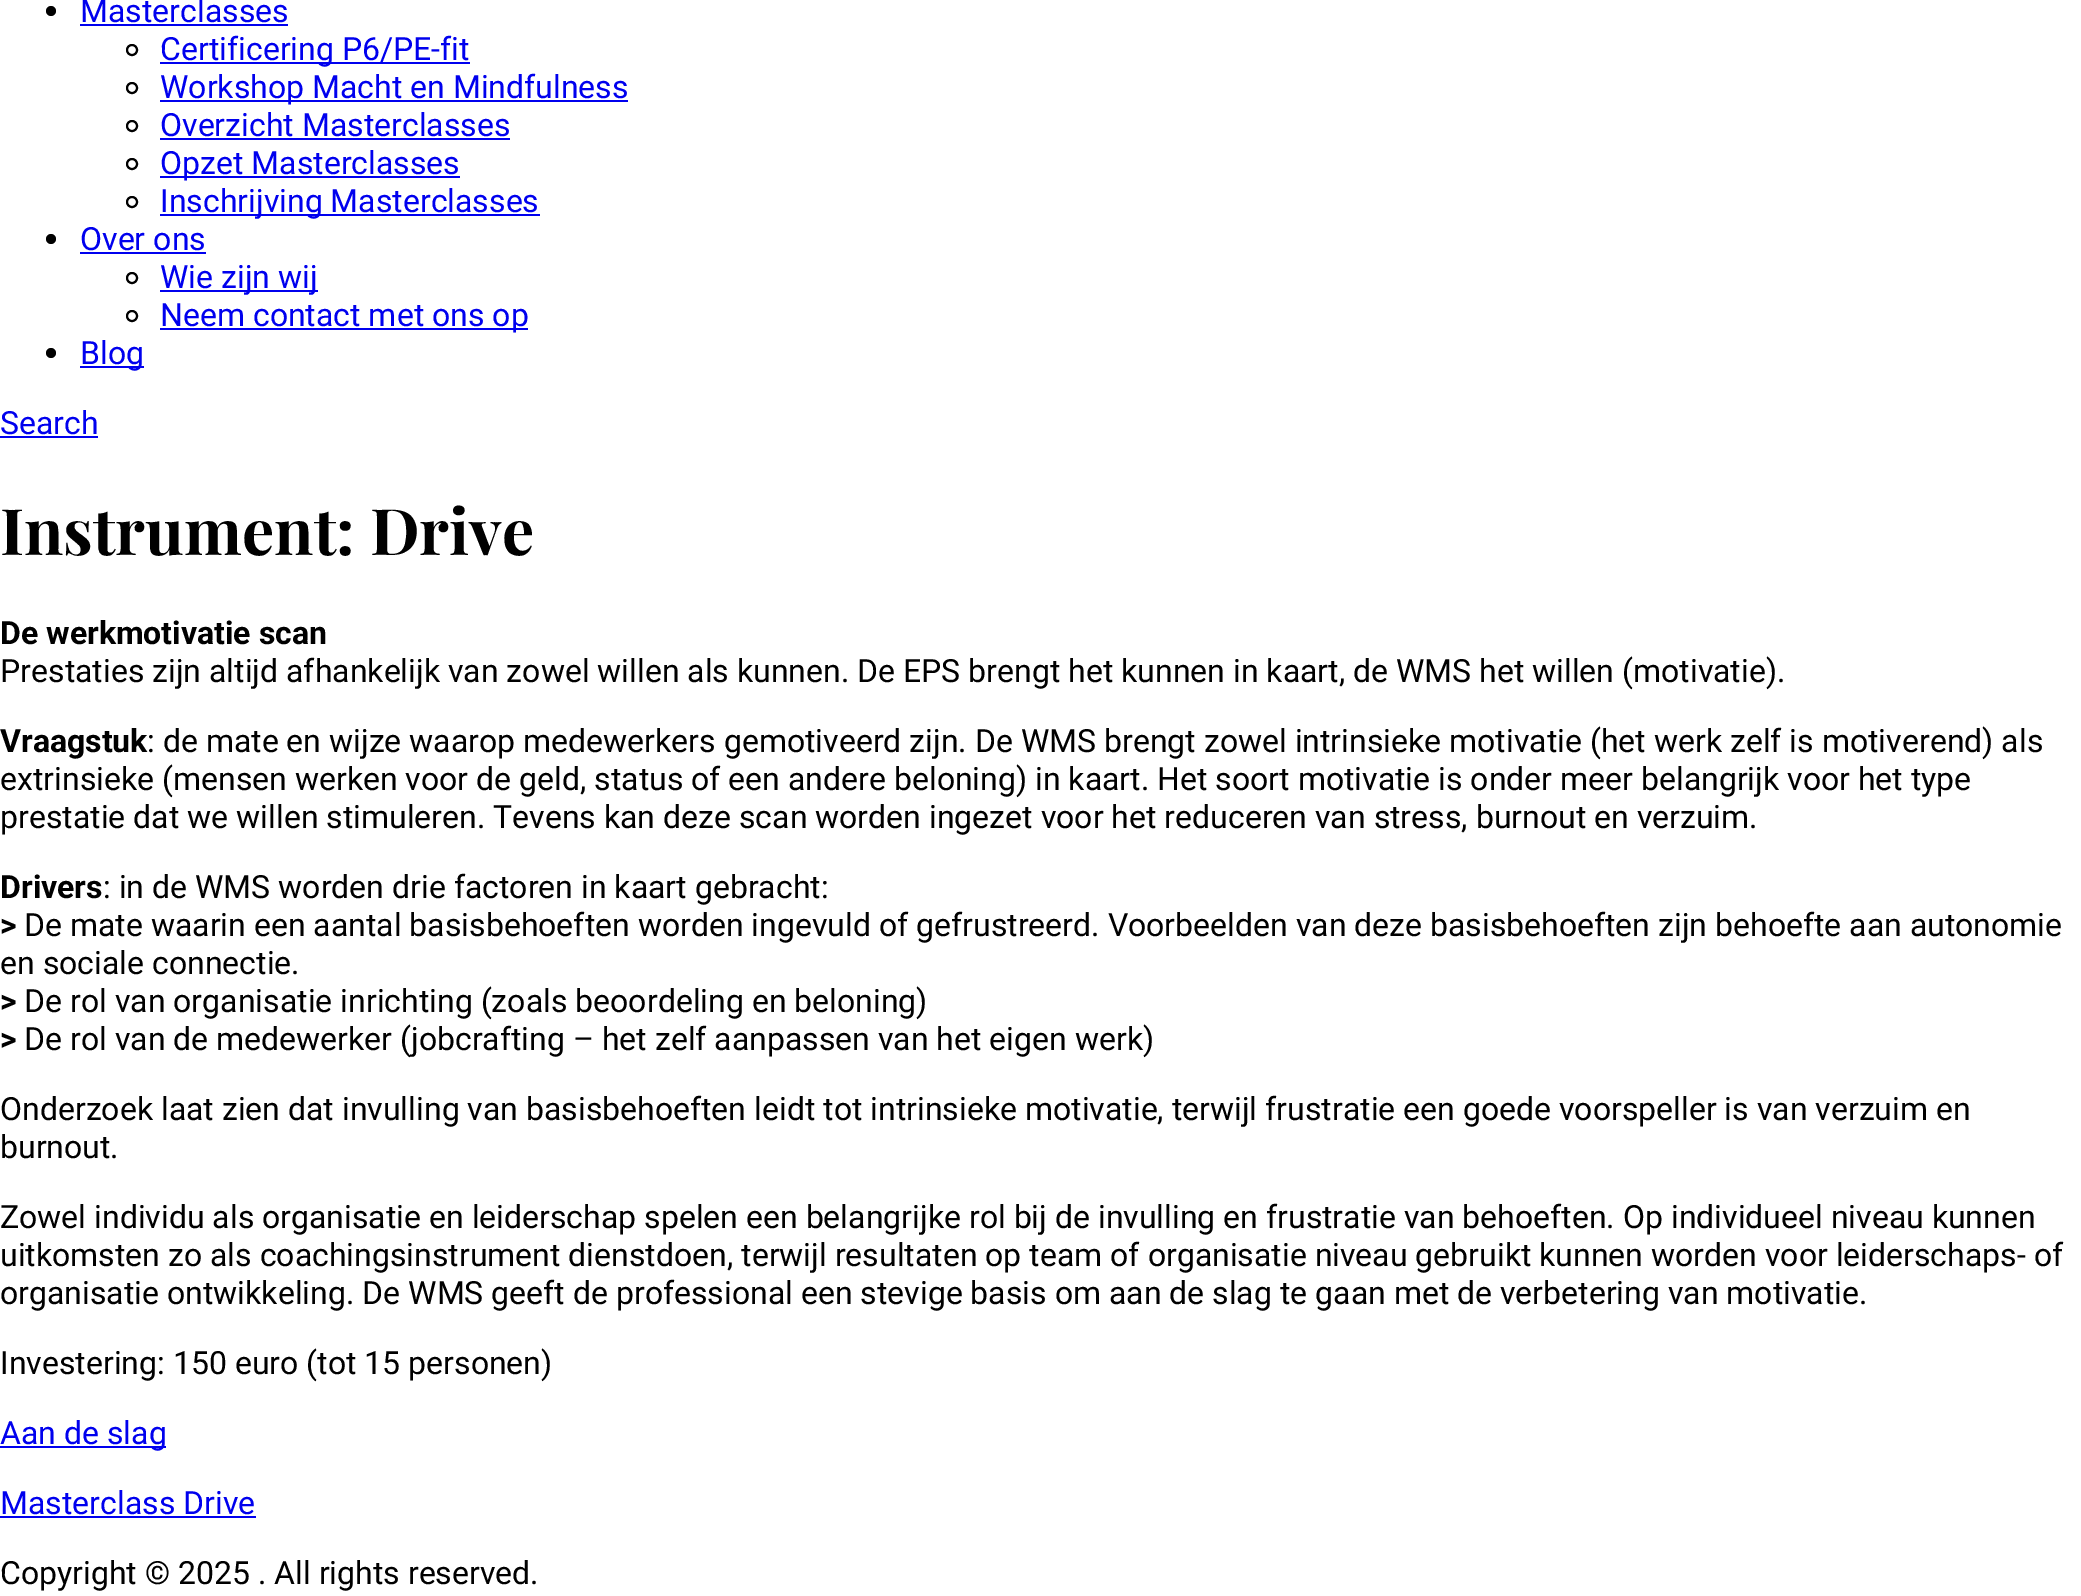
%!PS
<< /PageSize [2081 1596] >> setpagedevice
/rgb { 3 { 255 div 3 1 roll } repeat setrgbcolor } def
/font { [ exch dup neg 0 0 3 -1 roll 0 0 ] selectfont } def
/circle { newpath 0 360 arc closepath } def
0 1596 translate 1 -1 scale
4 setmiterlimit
255 255 255 rgb
0 0 2081 1596 rectfill
0 0 0 rgb
51 11 5 circle fill
0 0 238 rgb
80 24 208 2 rectfill
0 0 0 rgb
2 setlinewidth
132 50 5 circle stroke
0 0 238 rgb
160 62 310 2 rectfill
0 0 0 rgb
132 88 5 circle stroke
0 0 238 rgb
160 100 468 2 rectfill
0 0 0 rgb
132 126 5 circle stroke
0 0 238 rgb
160 138 350 2 rectfill
0 0 0 rgb
132 164 5 circle stroke
0 0 238 rgb
160 176 300 2 rectfill
0 0 0 rgb
132 202 5 circle stroke
0 0 238 rgb
160 214 380 2 rectfill
0 0 0 rgb
51 239 5 circle fill
0 0 238 rgb
80 252 126 2 rectfill
0 0 0 rgb
132 278 5 circle stroke
0 0 238 rgb
160 290 158 2 rectfill
0 0 0 rgb
132 316 5 circle stroke
0 0 238 rgb
160 328 368 2 rectfill
0 0 0 rgb
51 353 5 circle fill
[
  [80 366 64 2 0 0 238]
  [0 436 98 2 0 0 238]
  [0 1446 166 2 0 0 238]
  [0 1516 256 2 0 0 238]
] { aload pop rgb rectfill } forall
/Roboto-Regular 32 font
[
  [(Masterclasses) 80 22]
  [(Certificering P6/PE-fit) 160 60]
  [(Workshop Macht en Mindfulness) 160 98]
  [(Overzicht Masterclasses) 160 136]
  [(Opzet Masterclasses) 160 174]
  [(Inschrijving Masterclasses) 160 212]
  [(Over ons) 80 250]
  [(Wie zijn wij) 160 288]
  [(Neem contact met ons op) 160 326]
  [(Blog) 80 364]
  [(Search) 0 434]
] { aload pop moveto show } forall
/PlayfairDisplay-Bold 64 font
0 0 0 rgb
0 555 moveto (Instrument: Drive) show
/Roboto-Bold 32 font
0 644 moveto (De werkmotivatie scan) show
/Roboto-Regular 32 font
0 682 moveto (Prestaties zijn altijd afhankelijk van zowel willen als kunnen. De EPS brengt het kunnen in kaart, de WMS het willen \(motivatie\).) show
/Roboto-Bold 32 font
0 752 moveto (Vraagstuk) show
/Roboto-Regular 32 font
[
  [(: de mate en wijze waarop medewerkers gemotiveerd zijn. De WMS brengt zowel intrinsieke motivatie \(het werk zelf is motiverend\) als) 147 752]
  [(extrinsieke \(mensen werken voor de geld, status of een andere beloning\) in kaart. Het soort motivatie is onder meer belangrijk voor het type) 0 790]
  [(prestatie dat we willen stimuleren. Tevens kan deze scan worden ingezet voor het reduceren van stress, burnout en verzuim.) 0 828]
] { aload pop moveto show } forall
/Roboto-Bold 32 font
0 898 moveto (Drivers) show
/Roboto-Regular 32 font
103 898 moveto (: in de WMS worden drie factoren in kaart gebracht:) show
/Roboto-Bold 32 font
0 936 moveto (>) show
/Roboto-Regular 32 font
24 936 moveto (De mate waarin een aantal basisbehoeften worden ingevuld of gefrustreerd. Voorbeelden van deze basisbehoeften zijn behoefte aan autonomie) show
0 974 moveto (en sociale connectie.) show
/Roboto-Bold 32 font
0 1012 moveto (>) show
/Roboto-Regular 32 font
24 1012 moveto (De rol van organisatie inrichting \(zoals beoordeling en beloning\)) show
/Roboto-Bold 32 font
0 1050 moveto (>) show
/Roboto-Regular 32 font
[
  [(De rol van de medewerker \(jobcrafting – het zelf aanpassen van het eigen werk\)) 24 1050]
  [(Onderzoek laat zien dat invulling van basisbehoeften leidt tot intrinsieke motivatie, terwijl frustratie een goede voorspeller is van verzuim en) 0 1120]
  [(burnout.) 0 1158]
  [(Zowel individu als organisatie en leiderschap spelen een belangrijke rol bij de invulling en frustratie van behoeften. Op individueel niveau kunnen) 0 1228]
  [(uitkomsten zo als coachingsinstrument dienstdoen, terwijl resultaten op team of organisatie niveau gebruikt kunnen worden voor leiderschaps- of) 0 1266]
  [(organisatie ontwikkeling. De WMS geeft de professional een stevige basis om aan de slag te gaan met de verbetering van motivatie.) 0 1304]
  [(Investering: 150 euro \(tot 15 personen\)) 0 1374]
] { aload pop moveto show } forall
0 0 238 rgb
0 1444 moveto (Aan de slag) show
0 1514 moveto (Masterclass Drive) show
0 0 0 rgb
0 1584 moveto (Copyright © 2025 . All rights reserved.) show
showpage
